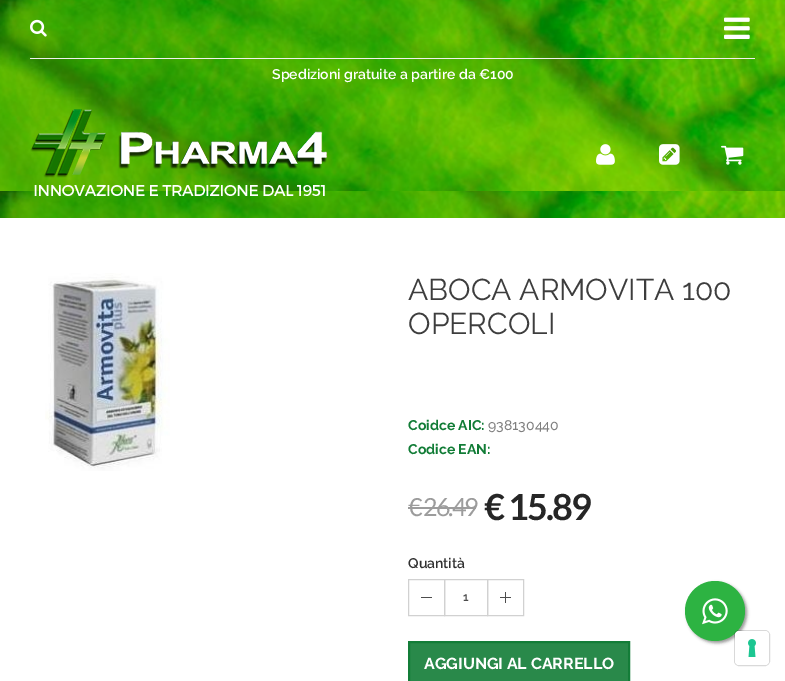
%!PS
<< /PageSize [785 681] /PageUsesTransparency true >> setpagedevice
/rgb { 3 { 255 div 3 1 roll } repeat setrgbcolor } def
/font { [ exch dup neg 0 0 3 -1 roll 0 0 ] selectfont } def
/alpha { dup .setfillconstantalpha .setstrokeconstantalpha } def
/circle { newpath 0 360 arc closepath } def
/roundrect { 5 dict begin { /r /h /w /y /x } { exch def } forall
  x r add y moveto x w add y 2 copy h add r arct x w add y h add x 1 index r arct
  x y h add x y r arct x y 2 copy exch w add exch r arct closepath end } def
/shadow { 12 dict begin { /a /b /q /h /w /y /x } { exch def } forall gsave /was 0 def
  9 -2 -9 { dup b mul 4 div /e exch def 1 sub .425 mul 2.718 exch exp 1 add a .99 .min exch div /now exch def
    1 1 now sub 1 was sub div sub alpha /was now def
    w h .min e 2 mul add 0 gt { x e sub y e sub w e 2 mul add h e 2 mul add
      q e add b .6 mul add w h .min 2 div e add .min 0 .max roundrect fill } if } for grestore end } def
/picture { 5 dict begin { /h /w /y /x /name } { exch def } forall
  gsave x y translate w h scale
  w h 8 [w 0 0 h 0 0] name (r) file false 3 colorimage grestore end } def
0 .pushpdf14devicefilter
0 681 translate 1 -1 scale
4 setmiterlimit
255 255 255 rgb
0 0 785 681 rectfill
(img/1.rgb) 0 0 785 218 picture
240 240 240 rgb
30 58 725 1 rectfill
(img/2.rgb) 30 19 17 18 picture
(img/3.rgb) 724 17 26 22 picture
(img/4.rgb) 596 144 19 21 picture
(img/5.rgb) 659 144 21 21 picture
(img/6.rgb) 721 145 23 20 picture
(img/7.rgb) 30 109 297 87 picture
(img/8.rgb) 45 273 125 198 picture
156 156 156 rgb
408 507 68 2 rectfill
209 209 209 rgb
408.5 579.5 36 36 rectstroke
77 77 77 rgb
421 597 11 1 rectfill
209 209 209 rgb
444.5 579.5 43 36 rectstroke
487.5 579.5 36 36 rectstroke
77 77 77 rgb
500 597 11 1 rectfill
505 592 1 11 rectfill
41 137 74 rgb
409 642 moveto 629 642 lineto 629 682 lineto 409 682 lineto closepath gsave fill grestore
19 125 56 rgb
2 setlinewidth
stroke
153 153 153 rgb
687 583 60 60 30 1.5 1 shadow
45 179 66 rgb
715 611 30 circle fill
(img/9.rgb) 702 598 26 27 picture
0.15 alpha
0 0 0 rgb
1 setlinewidth
734.5 630.5 35 35 4.5 roundrect stroke
1 alpha
255 255 255 rgb
735 631 34 34 4 roundrect fill
(img/10.rgb) 748 639 8 18 picture
/Raleway-SemiBold 14 font
272 79 moveto (Spedizioni gratuite a partire da €100) show
/Raleway-Regular 30 font
61 61 61 rgb
408 300 moveto (ABOCA ARMOVITA 100) show
408 334 moveto (OPERCOLI) show
/Raleway-Bold 14 font
17 124 54 rgb
408 430 moveto (Coidce AIC:) show
/Raleway-Medium 14 font
128 128 128 rgb
488 430 moveto (938130440) show
/Raleway-Bold 14 font
17 124 54 rgb
408 454 moveto (Codice EAN:) show
/Lato-Regular 25 font
156 156 156 rgb
408 516 moveto -2 0 (€ 26.49) ashow
/Lato-Bold 36 font
38 38 38 rgb
484 520 moveto -2 0 (€ 15.89) ashow
/Raleway-SemiBold 14 font
49 49 49 rgb
408 568 moveto (Quantità) show
/Raleway-SemiBold 12 font
76 76 76 rgb
463 601 moveto (1) show
/Raleway-Bold 16 font
255 255 255 rgb
424 669 moveto (AGGIUNGI AL CARRELLO) show
.poppdf14devicefilter showpage
